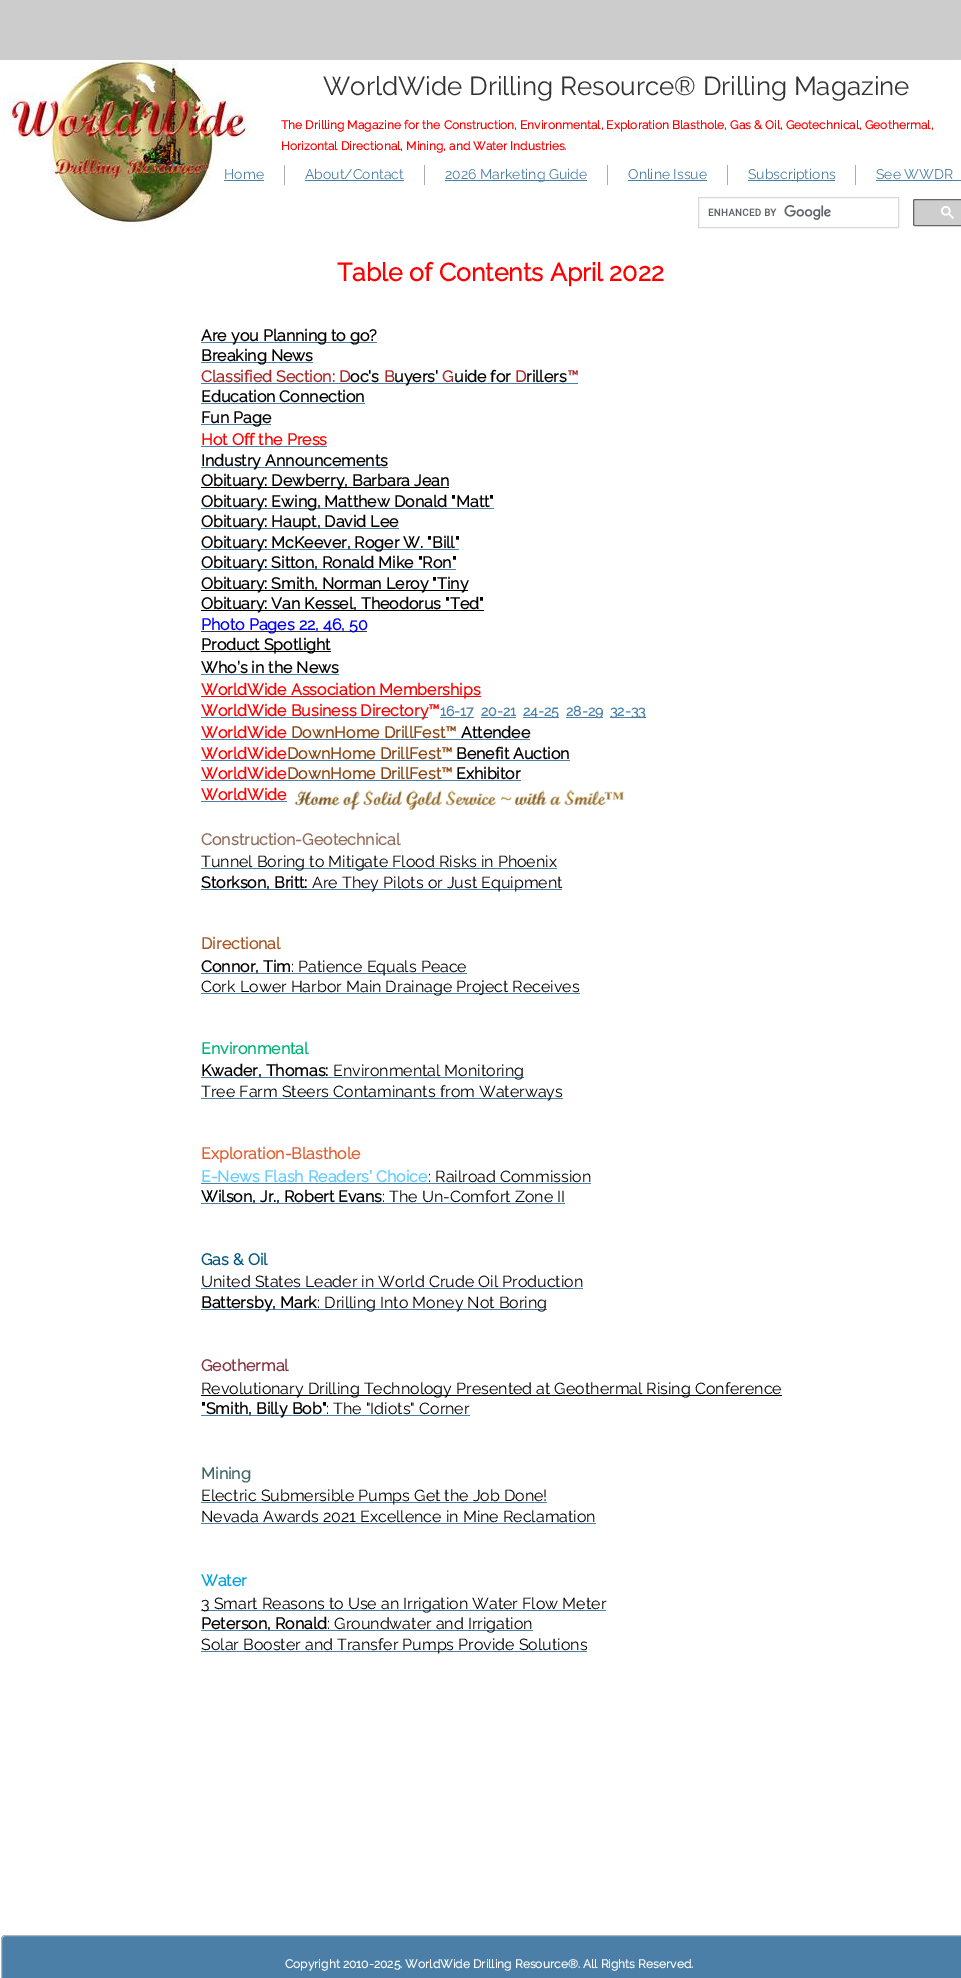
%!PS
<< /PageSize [961 1978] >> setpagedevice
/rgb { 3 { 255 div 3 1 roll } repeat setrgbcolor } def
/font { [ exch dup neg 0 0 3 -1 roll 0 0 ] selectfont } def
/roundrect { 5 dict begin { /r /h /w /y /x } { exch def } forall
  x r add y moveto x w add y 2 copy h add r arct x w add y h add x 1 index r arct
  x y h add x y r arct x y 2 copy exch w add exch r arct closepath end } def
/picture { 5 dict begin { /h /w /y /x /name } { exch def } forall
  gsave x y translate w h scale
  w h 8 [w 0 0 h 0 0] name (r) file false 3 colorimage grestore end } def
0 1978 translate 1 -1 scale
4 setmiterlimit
255 255 255 rgb
0 0 961 1978 rectfill
gsave 0 0 moveto 961 0 lineto 961 60 lineto 0 60 lineto closepath clip newpath
<< /ShadingType 2 /ColorSpace /DeviceRGB /Coords [480 0 481 1978] /Extend [true true] /Function << /FunctionType 2 /Domain [0 1] /C0 [0.8 0.8 0.8] /C1 [0.898 0.898 0.898] /N 1 >> >> shfill grestore
(img/1.rgb) 3 61 248 168 picture
[
  [284 165 1 20 174 174 174]
  [224 180 40 1 75 127 168]
  [424 165 1 20 174 174 174]
  [305 180 99 1 75 127 168]
  [607 165 1 20 174 174 174]
  [445 180 142 1 75 127 168]
  [727 165 1 20 174 174 174]
  [628 180 79 1 75 127 168]
  [855 165 1 20 174 174 174]
  [748 180 87 1 75 127 168]
  [876 180 85 1 75 127 168]
] { aload pop rgb rectfill } forall
217 217 217 rgb
698.5 197.5 200 30 rectstroke
(img/2.rgb) 708 205 123 15 picture
206 206 206 rgb
915 199 moveto 961 199 lineto 961 226 lineto 915 226 lineto 914 226 913 225 913 224 curveto 913 201 lineto 913 200 914 199 915 199 curveto closepath fill
102 102 102 rgb
913.5 199.5 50 26 1.5 roundrect stroke
(img/3.rgb) 941 206 13 13 picture
[
  [201 342 176 1 75 127 168]
  [201 362 112 1 75 127 168]
  [201 383 377 1 75 127 168]
  [201 403 164 1 75 127 168]
  [201 424 70 1 75 127 168]
  [201 446 126 1 75 127 168]
  [201 467 187 1 75 127 168]
  [201 487 248 1 0 0 0]
  [201 508 293 1 75 127 168]
  [201 528 198 1 75 127 168]
  [201 549 258 1 75 127 168]
  [201 569 255 1 75 127 168]
  [201 590 267 1 0 0 0]
  [201 610 283 1 0 0 0]
  [201 631 166 1 51 51 51]
  [201 651 130 1 0 0 0]
  [201 674 138 1 75 127 168]
  [201 696 280 1 255 0 0]
  [201 717 227 1 75 127 168]
  [440 717 34 1 75 127 168]
  [481 717 35 1 75 127 168]
  [523 717 36 1 75 127 168]
  [566 717 37 1 75 127 168]
  [610 717 36 1 75 127 168]
  [201 739 329 1 75 127 168]
  [201 760 369 1 75 127 168]
  [201 780 320 1 75 127 168]
  [201 801 86 1 75 127 168]
  [201 868 356 1 75 127 168]
  [201 889 361 1 75 127 168]
  [201 973 266 1 75 127 168]
  [201 993 379 1 75 127 168]
  [201 1077 323 1 75 127 168]
  [201 1098 362 1 75 127 168]
  [201 1183 390 1 75 127 168]
  [201 1203 364 1 75 127 168]
  [201 1288 382 1 75 127 168]
  [201 1309 346 1 75 127 168]
  [201 1395 581 1 0 0 0]
  [201 1415 269 1 75 127 168]
  [201 1502 346 1 75 127 168]
  [201 1523 395 1 75 127 168]
  [201 1610 405 1 75 127 168]
  [201 1630 332 1 75 127 168]
  [201 1651 386 1 75 127 168]
] { aload pop rgb rectfill } forall
(img/4.rgb) 294 790 331 20 picture
75 127 167 rgb
6 1935 moveto 961 1935 lineto 961 1978 lineto 1 1978 lineto 1 1940 lineto 1 1937 3 1935 6 1935 curveto closepath fill
169 180 187 rgb
1.5 1935.5 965 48 4.5 roundrect stroke
/Raleway-Thin 26 font
51 51 51 rgb
323 95 moveto (WorldWide Drilling Resource® Drilling Magazine) show
/Raleway-Bold 12 font
255 0 0 rgb
281 129 moveto (The Drilling Magazine for the Construction, Environmental, Exploration Blasthole, Gas & Oil, Geotechnical, Geothermal,) show
281 150 moveto (Horizontal Directional, Mining, and Water Industries.) show
/Raleway-Thin 14 font
75 127 168 rgb
[
  [(Home) 224 179]
  [(About/Contact) 305 179]
  [(2026 Marketing Guide) 445 179]
  [(Online Issue) 628 179]
  [(Subscriptions) 748 179]
  [(See WWDR) 876 179]
] { aload pop moveto show } forall
/Raleway-Bold 25 font
255 0 0 rgb
337 281 moveto (Table of Contents April 2022) show
/Raleway-Bold 16 font
0 0 0 rgb
201 341 moveto (Are you Planning to go?) show
201 361 moveto (Breaking News) show
165 42 42 rgb
201 382 moveto (Classified Section: D) show
0 0 0 rgb
350 382 moveto (oc's) show
165 42 42 rgb
384 382 moveto (B) show
0 0 0 rgb
394 382 moveto (uyers') show
165 42 42 rgb
442 382 moveto (G) show
0 0 0 rgb
454 382 moveto (uide for) show
165 42 42 rgb
515 382 moveto (D) show
0 0 0 rgb
526 382 moveto (rillers) show
165 42 42 rgb
567 382 moveto (™) show
0 0 0 rgb
201 402 moveto (Education Connection) show
201 423 moveto (Fun Page) show
255 0 0 rgb
201 445 moveto (Hot Off the Press) show
0 0 0 rgb
[
  [(Industry Announcements) 201 466]
  [(Obituary: Dewberry, Barbara Jean) 201 486]
  [(Obituary: Ewing, Matthew Donald "Matt") 201 507]
  [(Obituary: Haupt, David Lee) 201 527]
  [(Obituary: McKeever, Roger W. "Bill") 201 548]
  [(Obituary: Sitton, Ronald Mike "Ron") 201 568]
  [(Obituary: Smith, Norman Leroy "Tiny) 201 589]
  [(Obituary: Van Kessel, Theodorus "Ted") 201 609]
] { aload pop moveto show } forall
0 0 255 rgb
201 630 moveto (Photo Pages 22, 46, 50) show
0 0 0 rgb
201 650 moveto (Product Spotlight) show
201 673 moveto (Who’s in the News) show
255 0 0 rgb
201 695 moveto (WorldWide Association Memberships) show
201 716 moveto (WorldWide Business Directory™) show
/Raleway-Bold 14 font
75 127 168 rgb
[
  [(16-17) 440 716]
  [(20-21) 481 716]
  [(24-25) 523 716]
  [(28-29) 566 716]
  [(32-33) 610 716]
] { aload pop moveto show } forall
/Raleway-Bold 16 font
255 0 0 rgb
201 738 moveto (WorldWide) show
139 69 19 rgb
291 738 moveto (DownHome DrillFest™) show
0 0 0 rgb
461 738 moveto (Attendee) show
255 0 0 rgb
201 759 moveto (WorldWide) show
139 69 19 rgb
287 759 moveto (DownHome DrillFest™) show
0 0 0 rgb
456 759 moveto (Benefit Auction) show
255 0 0 rgb
201 779 moveto (WorldWide) show
139 69 19 rgb
287 779 moveto (DownHome DrillFest™) show
0 0 0 rgb
456 779 moveto (Exhibitor) show
255 0 0 rgb
201 800 moveto (WorldWide) show
147 110 93 rgb
201 845 moveto (Construction-Geotechnical) show
/Raleway-Thin 16 font
0 0 0 rgb
201 867 moveto (Tunnel Boring to Mitigate Flood Risks in Phoenix) show
/Raleway-Bold 16 font
201 888 moveto (Storkson, Britt:) show
/Raleway-Thin 16 font
312 888 moveto (Are They Pilots or Just Equipment) show
/Raleway-Bold 16 font
168 85 34 rgb
201 949 moveto (Directional) show
0 0 0 rgb
201 972 moveto (Connor, Tim) show
/Raleway-Thin 16 font
291 972 moveto (: Patience Equals Peace) show
201 992 moveto (Cork Lower Harbor Main Drainage Project Receives) show
/Raleway-Bold 16 font
0 179 116 rgb
201 1054 moveto (Environmental) show
0 0 0 rgb
201 1076 moveto (Kwader, Thomas:) show
/Raleway-Thin 16 font
333 1076 moveto (Environmental Monitoring) show
201 1097 moveto (Tree Farm Steers Contaminants from Waterways) show
/Raleway-Bold 16 font
227 95 49 rgb
201 1159 moveto (Exploration-Blasthole) show
102 204 255 rgb
201 1182 moveto (E-News Flash Readers' Choice) show
/Raleway-Thin 16 font
0 0 0 rgb
428 1182 moveto (: Railroad Commission) show
/Raleway-Bold 16 font
201 1202 moveto (Wilson, Jr., Robert Evans) show
/Raleway-Thin 16 font
382 1202 moveto (: The Un-Comfort Zone II) show
/Raleway-Bold 16 font
0 88 128 rgb
201 1265 moveto (Gas & Oil) show
/Raleway-Thin 16 font
0 0 0 rgb
201 1287 moveto (United States Leader in World Crude Oil Production) show
/Raleway-Bold 16 font
201 1308 moveto (Battersby, Mark) show
/Raleway-Thin 16 font
317 1308 moveto (: Drilling Into Money Not Boring) show
/Raleway-Bold 16 font
136 53 66 rgb
201 1371 moveto (Geothermal) show
/Raleway-Thin 16 font
0 0 0 rgb
201 1394 moveto (Revolutionary Drilling Technology Presented at Geothermal Rising Conference) show
/Raleway-Bold 16 font
201 1414 moveto ("Smith, Billy Bob") show
/Raleway-Thin 16 font
326 1414 moveto (: The "Idiots" Corner) show
/Raleway-Bold 16 font
64 102 105 rgb
201 1479 moveto (Mining) show
/Raleway-Thin 16 font
0 0 0 rgb
201 1501 moveto (Electric Submersible Pumps Get the Job Done!) show
201 1522 moveto (Nevada Awards 2021 Excellence in Mine Reclamation) show
/Raleway-Bold 16 font
0 161 221 rgb
201 1586 moveto (Water) show
/Raleway-Thin 16 font
0 0 0 rgb
201 1609 moveto (3 Smart Reasons to Use an Irrigation Water Flow Meter) show
/Raleway-Bold 16 font
201 1629 moveto (Peterson, Ronald) show
/Raleway-Thin 16 font
327 1629 moveto (: Groundwater and Irrigation) show
201 1650 moveto (Solar Booster and Transfer Pumps Provide Solutions) show
/Raleway-Bold 12 font
255 255 255 rgb
285 1968 moveto (Copyright 2010-2025. WorldWide Drilling Resource®. All Rights Reserved.) show
showpage
